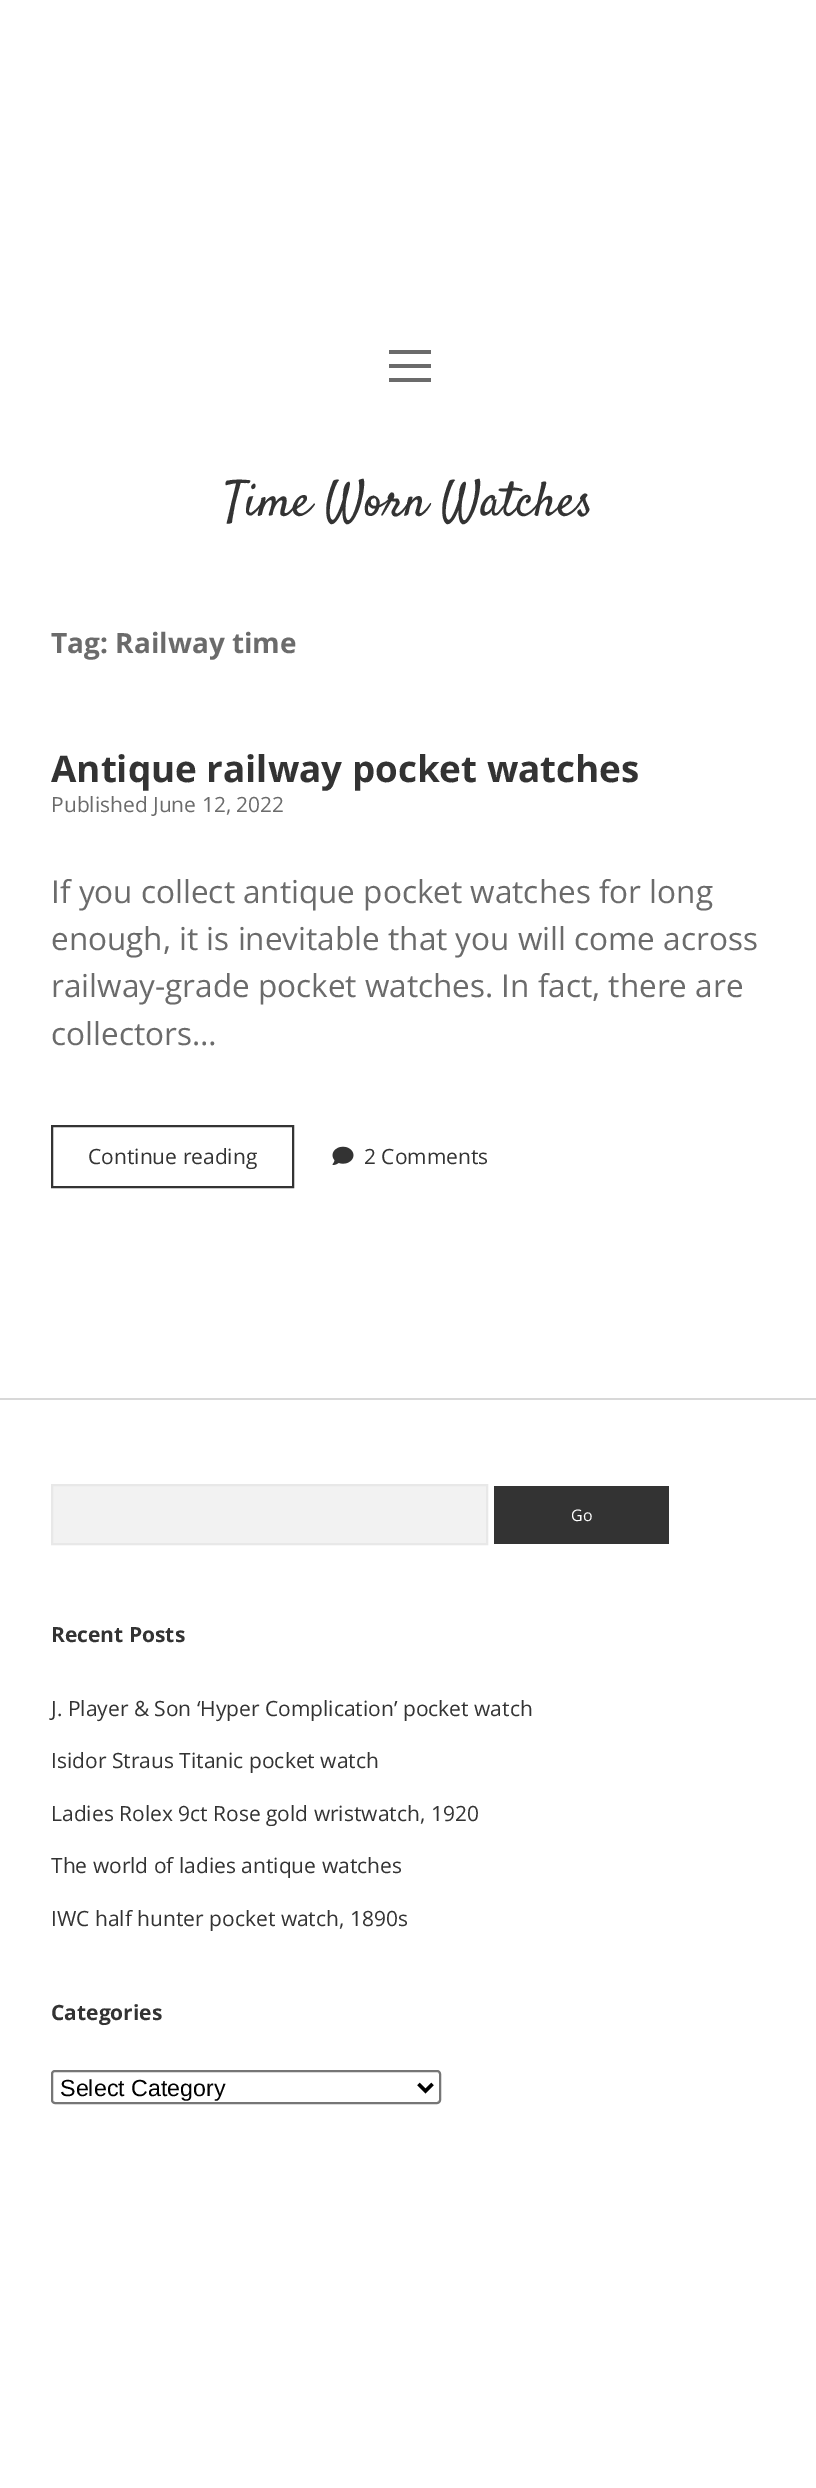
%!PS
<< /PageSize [816 2488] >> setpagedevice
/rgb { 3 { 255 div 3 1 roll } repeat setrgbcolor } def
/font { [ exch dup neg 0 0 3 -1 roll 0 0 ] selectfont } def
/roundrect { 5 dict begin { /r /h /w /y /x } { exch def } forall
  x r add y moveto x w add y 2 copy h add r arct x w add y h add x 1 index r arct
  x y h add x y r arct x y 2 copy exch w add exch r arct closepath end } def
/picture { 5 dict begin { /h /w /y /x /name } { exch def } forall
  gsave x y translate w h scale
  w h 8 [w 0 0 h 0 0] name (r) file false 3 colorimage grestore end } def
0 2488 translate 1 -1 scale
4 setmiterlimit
255 255 255 rgb
0 0 816 2488 rectfill
[
  [389 350 42 4 107 107 107]
  [389 364 42 4 107 107 107]
  [389 378 42 4 107 107 107]
] { aload pop rgb rectfill } forall
51 51 51 rgb
2 setlinewidth
52 1126 241 61 rectstroke
(img/1.rgb) 332 1146 22 19 picture
216 216 216 rgb
0 1398 816 2 rectfill
242 242 242 rgb
52 1485 moveto 487 1485 lineto 487 1544 lineto 52 1544 lineto closepath gsave fill grestore
232 232 232 rgb
stroke
51 51 51 rgb
494 1486 175 58 rectfill
118 118 118 rgb
52 2071 388 32 3 roundrect stroke
0 0 0 rgb
3.5 setlinewidth
418.5 2084 moveto 425.5 2091 lineto 432.5 2084 lineto stroke
/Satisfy-Regular 49 font
51 51 51 rgb
224 515 moveto (Time Worn Watches) show
/OpenSans-Bold 28 font
107 107 107 rgb
51 653 moveto (Tag: Railway time) show
/OpenSans-Bold 36.75 font
51 51 51 rgb
51 782 moveto (Antique railway pocket watches) show
/OpenSans-Regular 21 font
107 107 107 rgb
51 812 moveto (Published June 12, 2022) show
/OpenSans-Regular 31.5 font
[
  [(If you collect antique pocket watches for long) 51 903]
  [(enough, it is inevitable that you will come across) 51 950]
  [(railway-grade pocket watches. In fact, there are) 51 997]
  [(collectors…) 51 1045]
] { aload pop moveto show } forall
/OpenSans-Regular 21 font
51 51 51 rgb
88 1164 moveto (Continue reading) show
364 1164 moveto (2 Comments) show
/OpenSans-Regular 16 font
255 255 255 rgb
571 1521 moveto (Go) show
/OpenSans-Bold 21 font
51 51 51 rgb
51 1642 moveto (Recent Posts) show
/OpenSans-Regular 21 font
[
  [(J. Player & Son ‘Hyper Complication’ pocket watch) 51 1716]
  [(Isidor Straus Titanic pocket watch) 51 1768]
  [(Ladies Rolex 9ct Rose gold wristwatch, 1920) 51 1821]
  [(The world of ladies antique watches) 51 1873]
  [(IWC half hunter pocket watch, 1890s) 51 1926]
] { aload pop moveto show } forall
/OpenSans-Bold 21 font
51 2020 moveto (Categories) show
/LiberationSans-Regular 23.25 font
0 0 0 rgb
60 2096 moveto (Select Category) show
showpage
